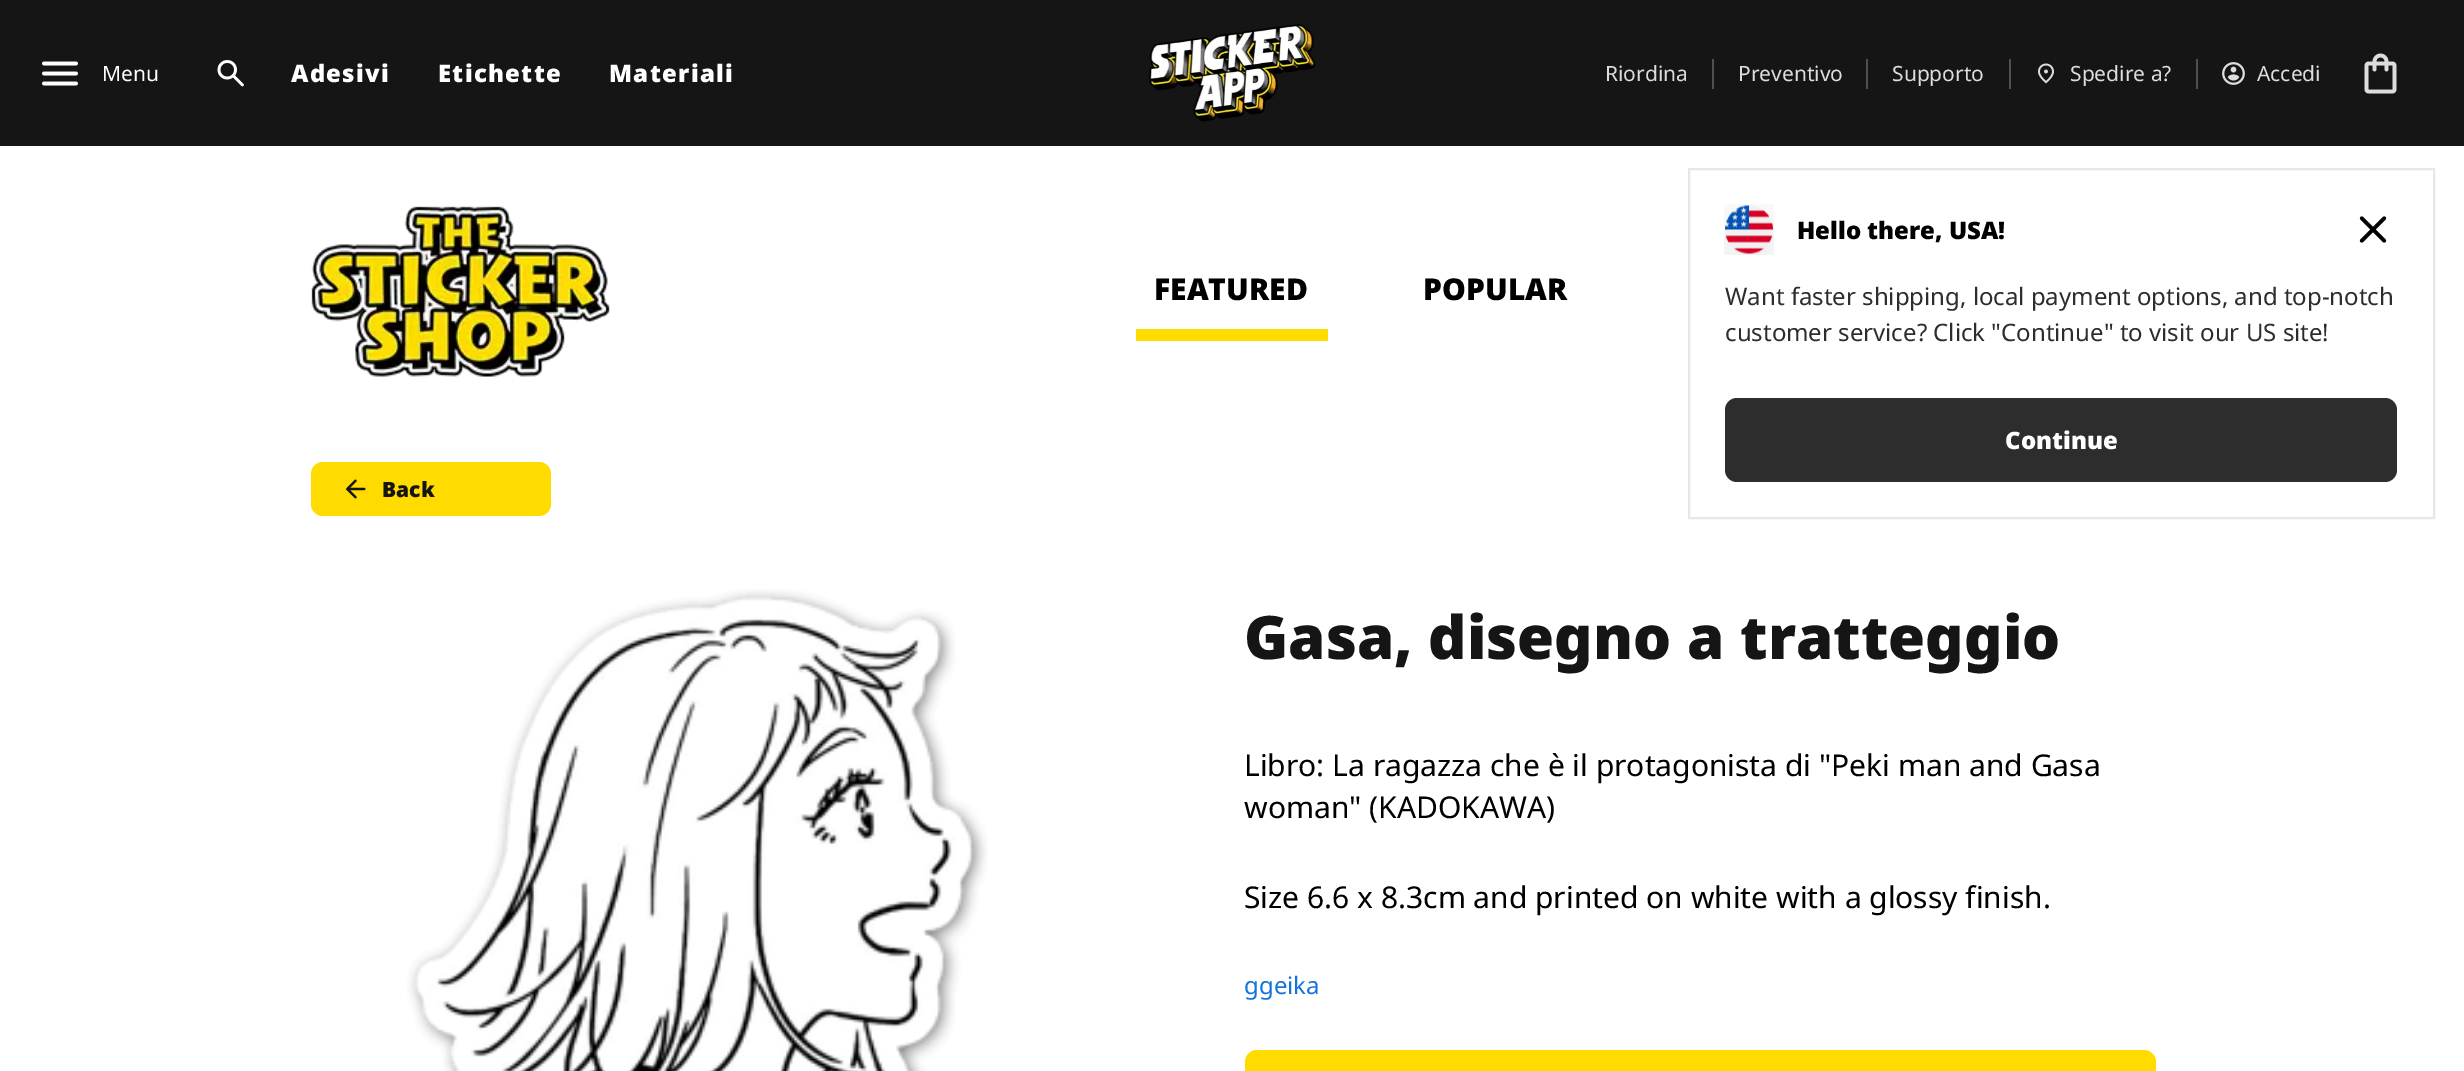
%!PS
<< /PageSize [2464 1071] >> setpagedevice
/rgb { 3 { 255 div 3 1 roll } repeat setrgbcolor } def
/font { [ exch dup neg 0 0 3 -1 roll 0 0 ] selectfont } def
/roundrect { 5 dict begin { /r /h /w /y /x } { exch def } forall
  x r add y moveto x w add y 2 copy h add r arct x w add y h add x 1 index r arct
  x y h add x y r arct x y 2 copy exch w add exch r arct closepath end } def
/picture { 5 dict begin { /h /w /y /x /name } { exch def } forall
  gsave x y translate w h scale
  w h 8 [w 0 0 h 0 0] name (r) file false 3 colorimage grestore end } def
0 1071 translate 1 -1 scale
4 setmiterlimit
255 255 255 rgb
0 0 2464 1071 rectfill
21 21 21 rgb
0 0 2464 146 rectfill
(img/1.rgb) 42 61 36 25 picture
(img/2.rgb) 217 60 27 27 picture
(img/3.rgb) 1149 24 167 98 picture
[
  [1712 59 2 30 80 80 80]
  [1866 59 2 30 80 80 80]
  [2009 59 2 30 80 80 80]
  [2196 59 2 30 80 80 80]
] { aload pop rgb rectfill } forall
(img/4.rgb) 2038 63 16 21 picture
(img/5.rgb) 2222 62 23 23 picture
(img/6.rgb) 2364 53 33 41 picture
(img/7.rgb) 311 206 299 171 picture
255 219 0 rgb
1136 329 192 12 rectfill
229 231 235 rgb
2 setlinewidth
1689 169 745 349 rectstroke
(img/8.rgb) 1724 204 50 51 picture
(img/9.rgb) 2359 216 28 27 picture
45 45 45 rgb
1725 398 672 84 12 roundrect fill
255 219 0 rgb
311 462 240 54 12 roundrect fill
(img/10.rgb) 346 479 20 20 picture
(img/11.rgb) 407 589 581 482 picture
1245 1050 911 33 12 roundrect fill
/NotoSans-Regular 21 font
255 255 255 rgb
102 81 moveto (Menu) show
/NotoSans-Black 24 font
291 82 moveto 1.25 0 (Adesivi) ashow
438 82 moveto 1.25 0 (Etichette) ashow
609 82 moveto 1.25 0 (Materiali) ashow
/NotoSans-Regular 21 font
221 221 221 rgb
[
  [(Riordina) 1605 81]
  [(Preventivo) 1738 81]
  [(Supporto) 1892 81]
  [(Spedire a?) 2070 81]
  [(Accedi) 2257 81]
] { aload pop moveto show } forall
/NotoSans-Black 30 font
0 0 0 rgb
1154 300 moveto (FEATURED) show
1423 300 moveto (POPULAR) show
/NotoSans-Black 24 font
1797 239 moveto (Hello there, USA!) show
/NotoSans-Regular 24 font
45 45 45 rgb
1725 305 moveto (Want faster shipping, local payment options, and top-notch) show
1725 341 moveto (customer service? Click "Continue" to visit our US site!) show
/NotoSans-Black 24 font
255 255 255 rgb
2005 449 moveto (Continue) show
/NotoSans-Black 21 font
21 21 21 rgb
382 497 moveto (Back) show
/NotoSans-Black 60 font
1244 659 moveto (Gasa, disegno a tratteggio) show
/NotoSans-Regular 30 font
0 0 0 rgb
[
  [(Libro: La ragazza che è il protagonista di "Peki man and Gasa) 1244 776]
  [(woman" \(KADOKAWA\)) 1244 818]
  [(Size 6.6 x 8.3cm and printed on white with a glossy finish.) 1244 908]
] { aload pop moveto show } forall
/NotoSans-Regular 24 font
21 115 222 rgb
1244 994 moveto (ggeika) show
showpage
